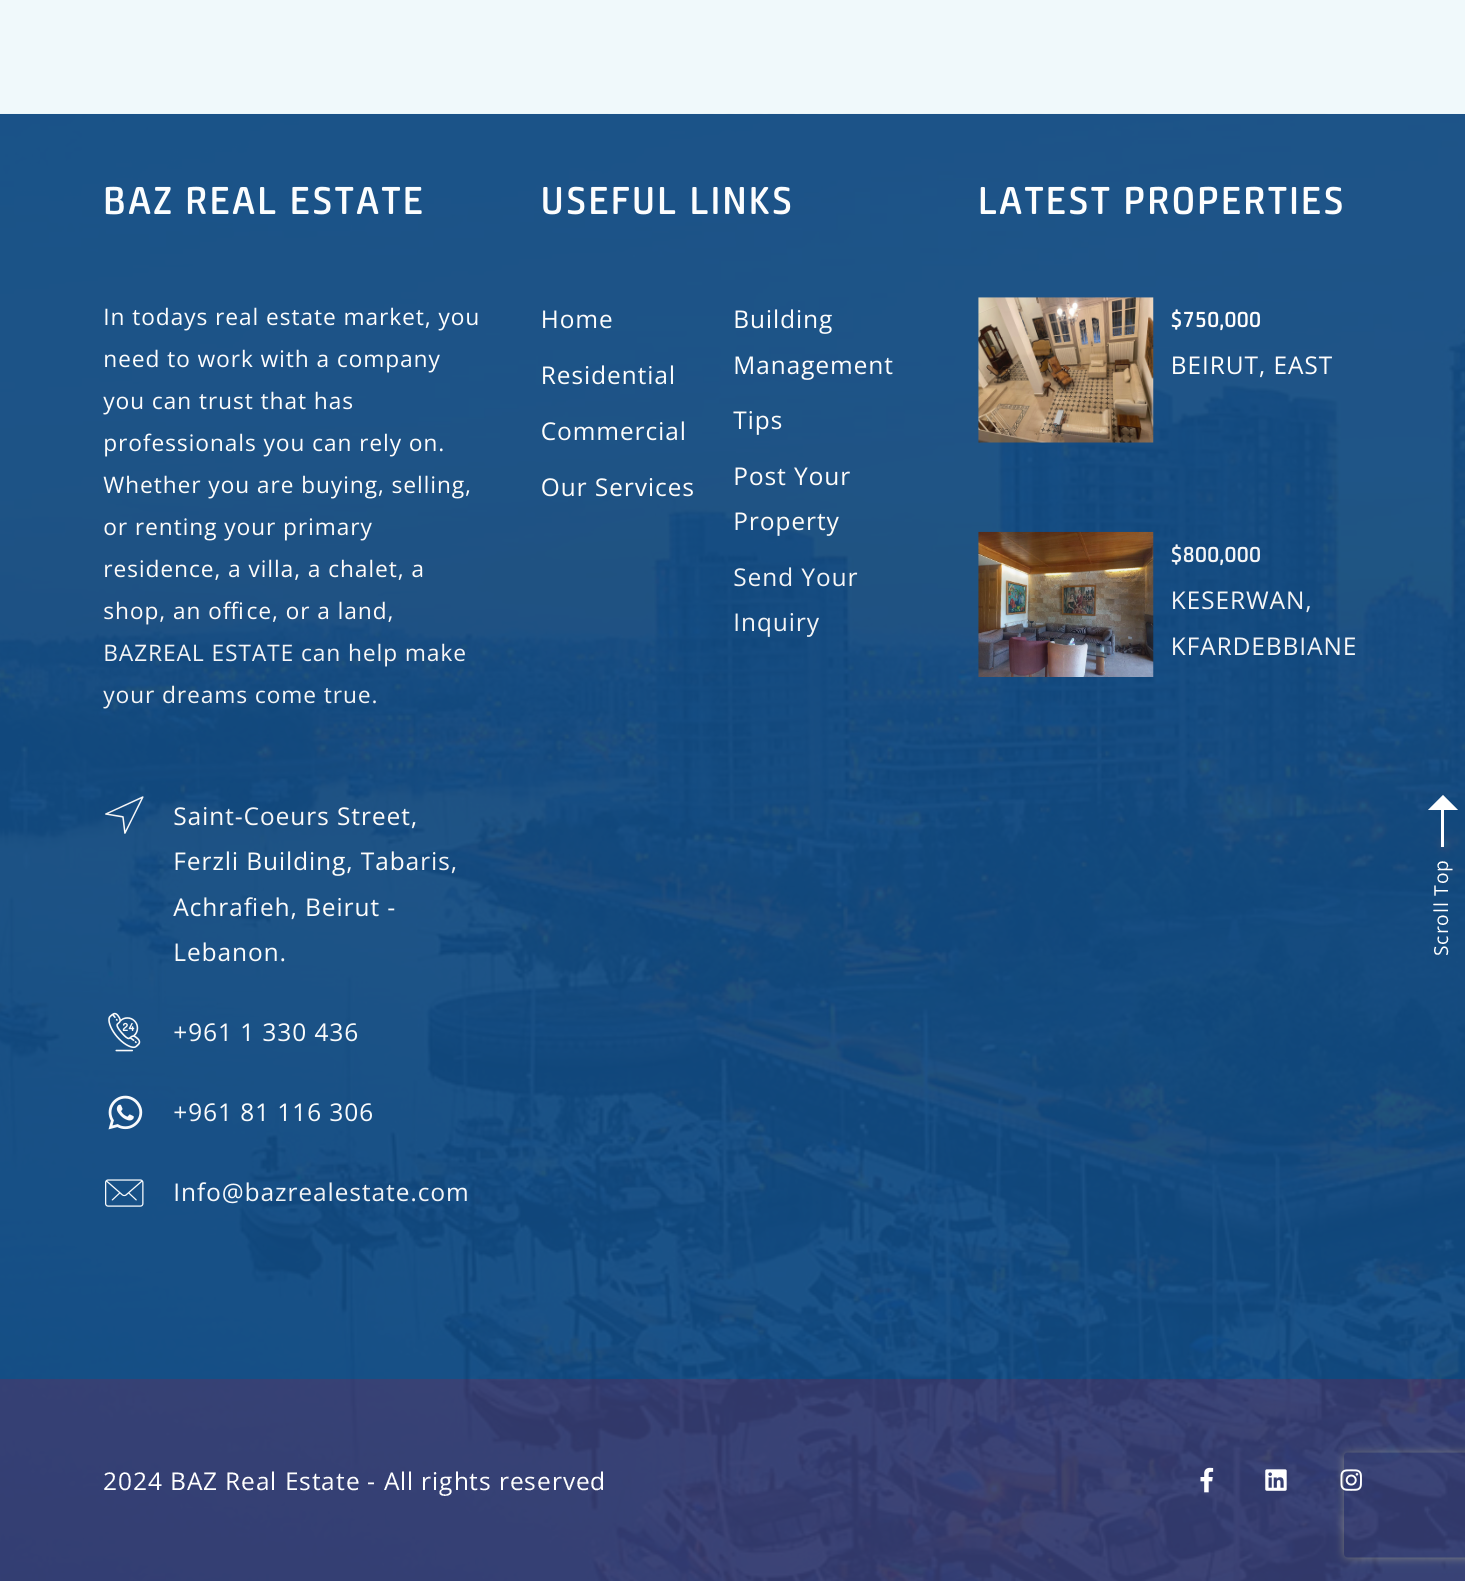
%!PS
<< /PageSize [1465 1581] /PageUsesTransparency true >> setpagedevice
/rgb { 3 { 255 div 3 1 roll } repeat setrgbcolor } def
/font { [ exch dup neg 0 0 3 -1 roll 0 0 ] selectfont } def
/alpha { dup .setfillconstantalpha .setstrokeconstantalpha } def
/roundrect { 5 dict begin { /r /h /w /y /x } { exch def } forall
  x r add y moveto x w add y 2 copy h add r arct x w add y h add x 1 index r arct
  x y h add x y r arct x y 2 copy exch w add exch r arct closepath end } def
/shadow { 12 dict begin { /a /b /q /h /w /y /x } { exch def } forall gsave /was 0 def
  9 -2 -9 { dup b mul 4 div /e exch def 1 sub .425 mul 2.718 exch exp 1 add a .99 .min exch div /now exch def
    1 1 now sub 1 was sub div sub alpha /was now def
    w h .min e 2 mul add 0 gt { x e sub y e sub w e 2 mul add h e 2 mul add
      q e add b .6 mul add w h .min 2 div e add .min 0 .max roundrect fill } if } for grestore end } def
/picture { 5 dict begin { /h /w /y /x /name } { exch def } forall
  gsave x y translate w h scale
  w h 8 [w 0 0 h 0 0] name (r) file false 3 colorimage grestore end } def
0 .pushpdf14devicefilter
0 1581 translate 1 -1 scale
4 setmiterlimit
240 249 251 rgb
0 0 1465 1581 rectfill
17 74 130 rgb
0 114 1465 1265 rectfill
(img/2.rgb) 105 796 39 38 picture
(img/3.rgb) 108 1012 33 40 picture
(img/4.rgb) 108 1095 35 35 picture
(img/5.rgb) 105 1179 39 28 picture
(img/6.rgb) 978 297 176 146 picture
(img/7.rgb) 978 531 176 146 picture
52 60 112 rgb
0 1379 1465 202 rectfill
gsave
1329 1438 moveto 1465 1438 lineto 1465 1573 lineto 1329 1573 lineto closepath 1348 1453 moveto 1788 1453 lineto 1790 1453 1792 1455 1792 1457 curveto 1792 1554 lineto 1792 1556 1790 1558 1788 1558 curveto 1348 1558 lineto 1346 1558 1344 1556 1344 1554 curveto 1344 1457 lineto 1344 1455 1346 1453 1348 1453 curveto closepath eoclip newpath
128 128 128 rgb
1344 1453 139 105 4 4.5 1 shadow
grestore
/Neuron-SemiBold 43.75 font
255 255 255 rgb
103 214 moveto 2.5 0 (BAZ REAL ESTATE) ashow
/OpenSans-Regular 22.75 font
103 325 moveto 0.9 0 (In todays real estate market, you) ashow
103 367 moveto 0.9 0 (need to work with a company) ashow
103 409 moveto 0.9 0 (you can trust that has) ashow
103 451 moveto 0.9 0 (professionals you can rely on.) ashow
103 493 moveto 0.9 0 (Whether you are buying, selling,) ashow
103 535 moveto 0.9 0 (or renting your primary) ashow
103 577 moveto 0.9 0 (residence, a villa, a chalet, a) ashow
103 619 moveto 0.9 0 (shop, an office, or a land,) ashow
103 661 moveto 0.9 0 (BAZREAL ESTATE can help make) ashow
103 703 moveto 0.9 0 (your dreams come true.) ashow
/OpenSans-Regular 24.5 font
173 825 moveto 0.9 0 (Saint-Coeurs Street,) ashow
173 870 moveto 0.9 0 (Ferzli Building, Tabaris,) ashow
173 916 moveto 0.9 0 (Achrafieh, Beirut -) ashow
173 961 moveto 0.9 0 (Lebanon.) ashow
173 1041 moveto 0.9 0 (+961 1 330 436) ashow
173 1121 moveto 0.9 0 (+961 81 116 306) ashow
173 1201 moveto 0.9 0 (Info@bazrealestate.com) ashow
/Neuron-SemiBold 43.75 font
541 214 moveto 2.5 0 (USEFUL LINKS) ashow
/OpenSans-Regular 24.5 font
541 328 moveto 0.9 0 (Home) ashow
541 384 moveto 0.9 0 (Residential) ashow
541 440 moveto 0.9 0 (Commercial) ashow
541 496 moveto 0.9 0 (Our Services) ashow
733 328 moveto 0.9 0 (Building) ashow
733 374 moveto 0.9 0 (Management) ashow
733 429 moveto 0.9 0 (Tips) ashow
733 485 moveto 0.9 0 (Post Your) ashow
733 530 moveto 0.9 0 (Property) ashow
733 586 moveto 0.9 0 (Send Your) ashow
733 631 moveto 0.9 0 (Inquiry) ashow
/Neuron-SemiBold 43.75 font
978 214 moveto 2.5 0 (LATEST PROPERTIES) ashow
/Neuron-SemiBold 24.5 font
1171 327 moveto 0.9 0 ($750,000) ashow
/OpenSans-Regular 24.5 font
1171 374 moveto 0.9 0 (BEIRUT, EAST) ashow
/Neuron-SemiBold 24.5 font
1171 562 moveto 0.9 0 ($800,000) ashow
/OpenSans-Regular 24.5 font
1171 609 moveto 0.9 0 (KESERWAN,) ashow
1171 655 moveto 0.9 0 (KFARDEBBIANE) ashow
(img/1.rgb) 0 113 1465 1468 picture
1443 795 moveto 1458 810 lineto 1444 810 lineto 1444 847 lineto 1441 847 lineto 1441 810 lineto 1428 810 lineto closepath fill
/OpenSans-Regular 19.25 font
gsave 1448 956 translate -90 rotate 0 0 moveto 0.9 0 (Scroll Top) ashow grestore
/OpenSans-Regular 24.5 font
103 1490 moveto 0.9 0 (2024 BAZ Real Estate - All rights reserved) ashow
(img/8.rgb) 1200 1467 14 26 picture
(img/9.rgb) 1265 1469 22 22 picture
(img/10.rgb) 1340 1469 22 22 picture
.poppdf14devicefilter showpage
